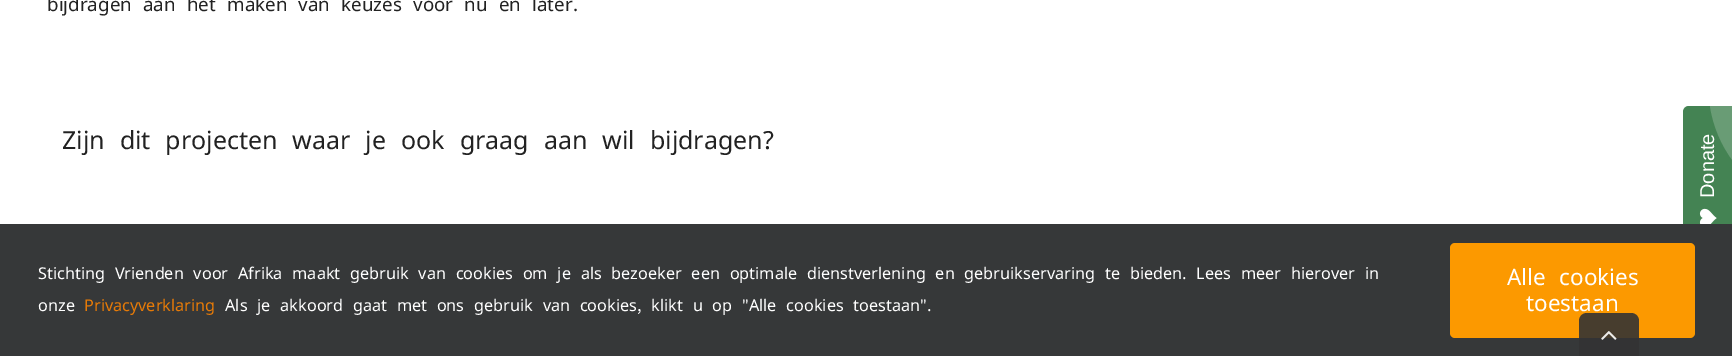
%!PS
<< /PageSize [1732 356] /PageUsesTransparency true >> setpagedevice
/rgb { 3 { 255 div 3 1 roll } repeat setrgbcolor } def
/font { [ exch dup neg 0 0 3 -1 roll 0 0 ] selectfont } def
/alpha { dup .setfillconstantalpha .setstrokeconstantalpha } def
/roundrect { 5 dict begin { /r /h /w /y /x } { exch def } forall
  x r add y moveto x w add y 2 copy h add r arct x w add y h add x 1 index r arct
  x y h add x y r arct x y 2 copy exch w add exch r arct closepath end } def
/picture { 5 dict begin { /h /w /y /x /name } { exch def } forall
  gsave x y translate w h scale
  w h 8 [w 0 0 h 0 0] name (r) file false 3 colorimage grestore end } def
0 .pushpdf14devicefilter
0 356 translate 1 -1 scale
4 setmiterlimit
255 255 255 rgb
0 0 1732 356 rectfill
68 131 83 rgb
1683 244 moveto 1683 112 lineto 1683 109 1685 106 1689 106 curveto 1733 106 lineto 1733 250 lineto 1689 250 lineto 1685 250 1683 248 1683 244 curveto closepath fill
(img/1.rgb) 1699 208 18 16 picture
54 56 57 rgb
0 224 1732 132 rectfill
252 153 0 rgb
1450 243 245 95 5 roundrect fill
0.9 alpha
51 51 51 rgb
1587 313 moveto 1631 313 lineto 1635.5 313 1639 316.5 1639 321 curveto 1639 356 lineto 1579 356 lineto 1579 321 lineto 1579 316.5 1582.5 313 1587 313 curveto closepath fill
1 alpha
(img/2.rgb) 1601 331 16 9 picture
/NotoTraditionalNushu-Regular 18.75 font
34 34 34 rgb
47 11 moveto (bijdragen aan het maken van keuzes voor nu en later.) show
/NotoTraditionalNushu-Regular 25 font
62 149 moveto (Zijn dit projecten waar je ook graag aan wil bijdragen?) show
/LiberationSans-Regular 20 font
255 255 255 rgb
gsave 1714 198 translate -90 rotate 0 0 moveto (Donate) show grestore
105 156 117 rgb
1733 161 moveto 1721 145 1713 126 1710 106 curveto 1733 106 lineto closepath fill
/NotoTraditionalNushu-Regular 16.25 font
255 255 255 rgb
38 279 moveto (Stichting Vrienden voor Afrika maakt gebruik van cookies om je als bezoeker een optimale dienstverlening en gebruikservaring te bieden. Lees meer hierover in) show
38 311 moveto (onze) show
230 122 7 rgb
84 311 moveto (Privacyverklaring) show
255 255 255 rgb
225 311 moveto (Als je akkoord gaat met ons gebruik van cookies, klikt u op "Alle cookies toestaan".) show
/NotoTraditionalNushu-Regular 22.5 font
1507 285 moveto (Alle cookies) show
1526 311 moveto (toestaan) show
.poppdf14devicefilter showpage
